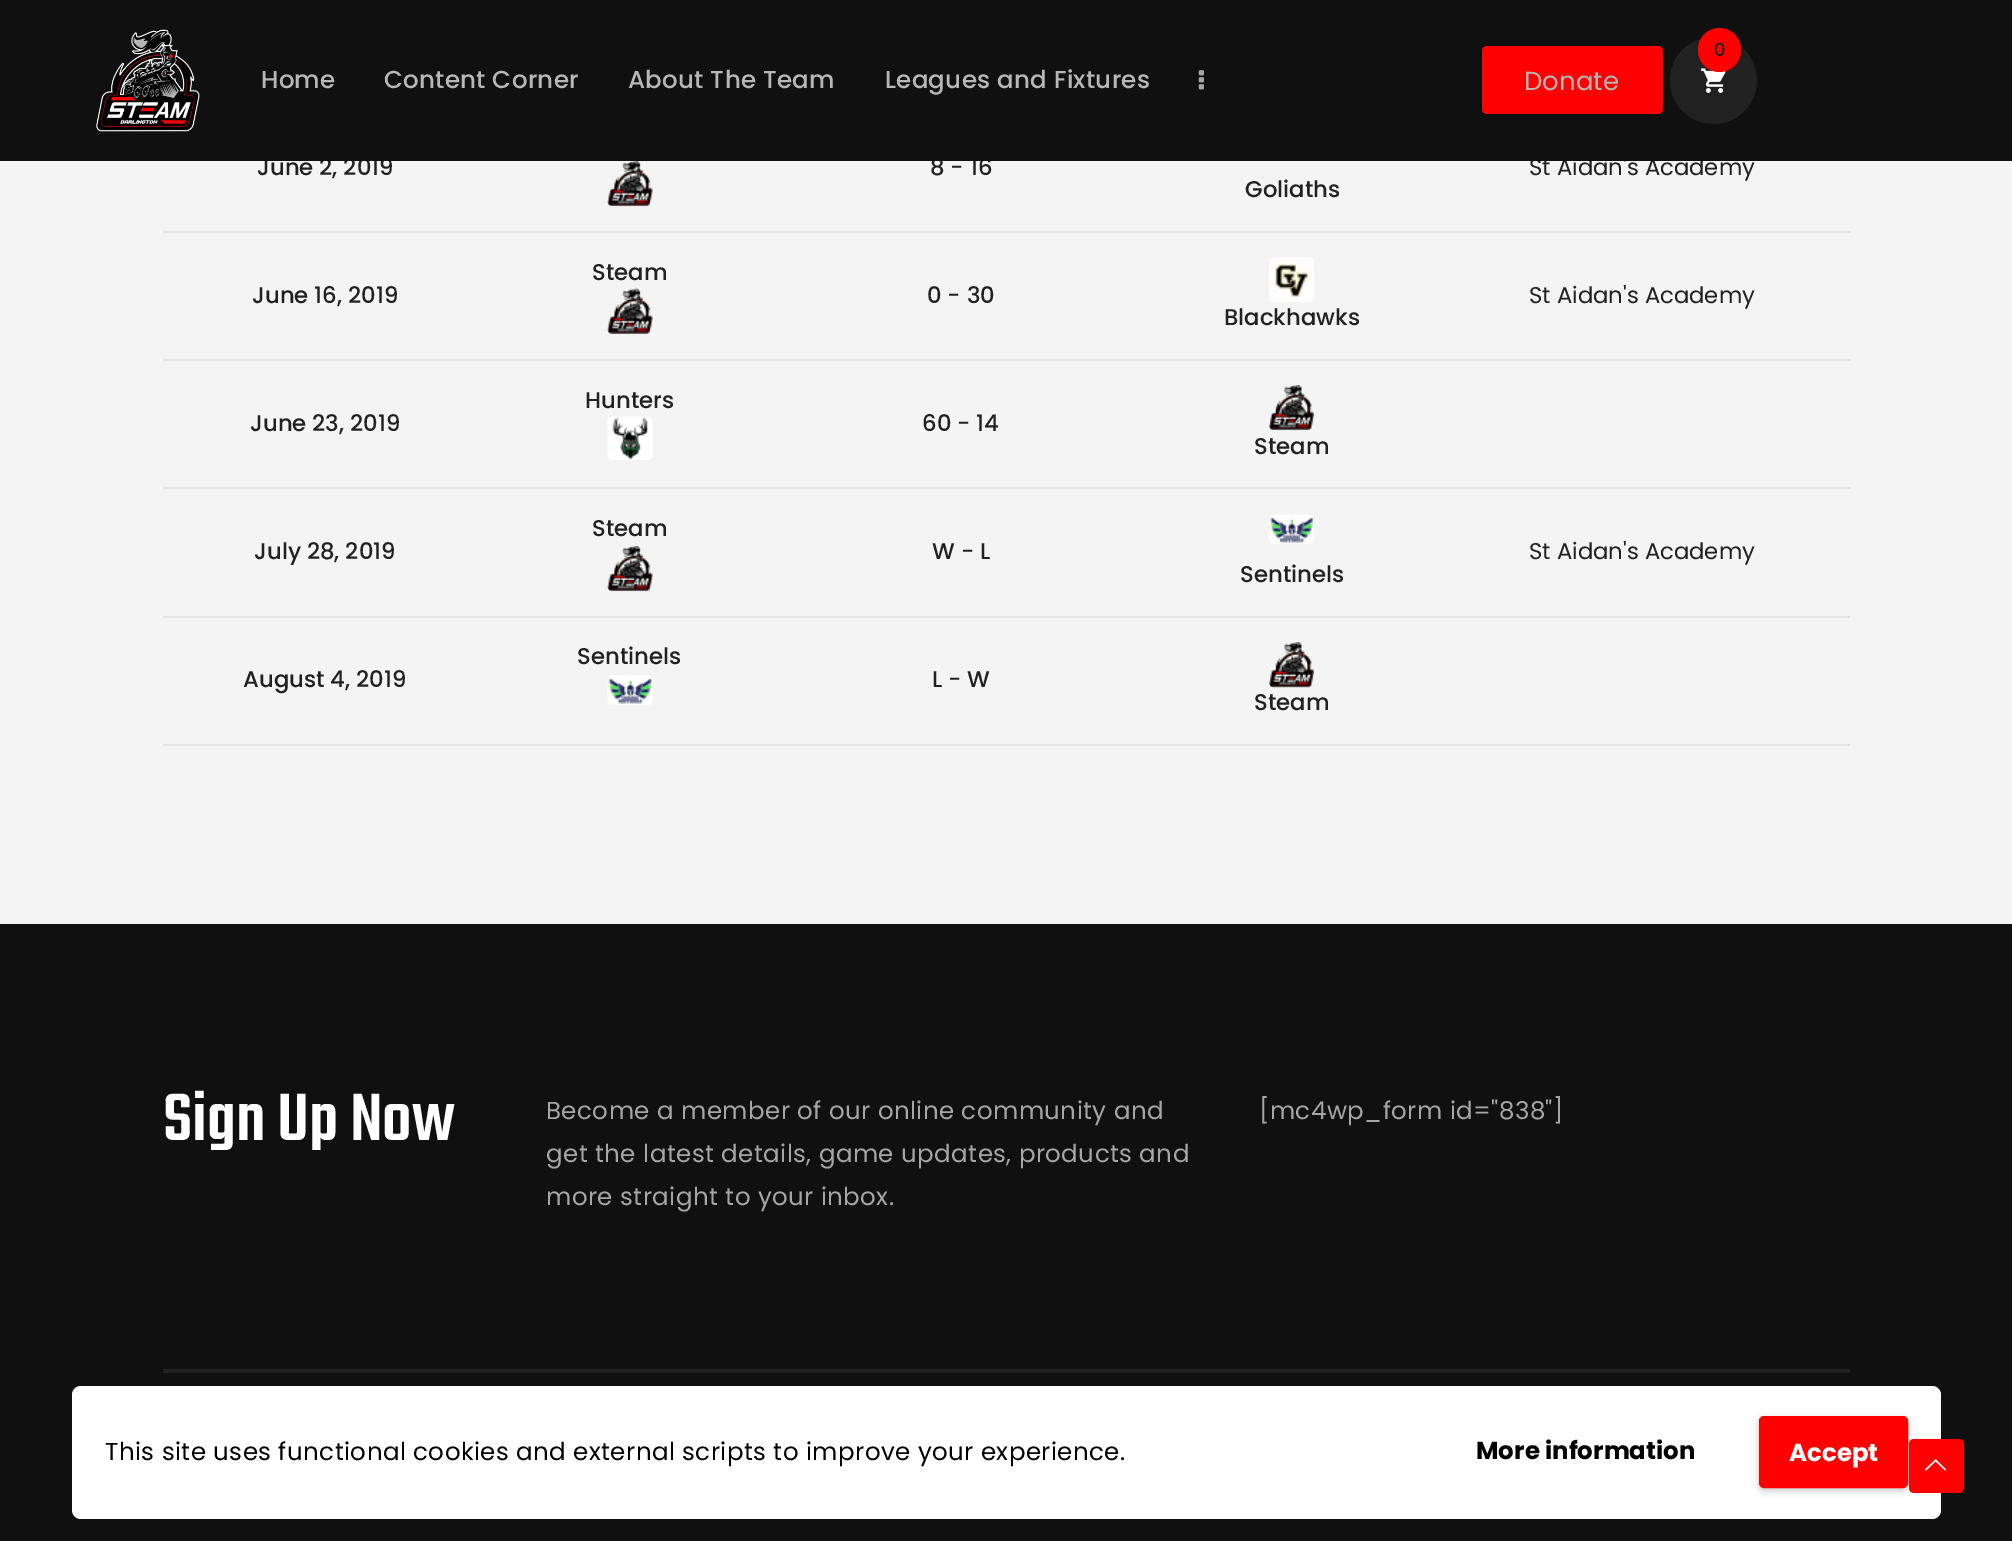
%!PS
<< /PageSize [2012 1541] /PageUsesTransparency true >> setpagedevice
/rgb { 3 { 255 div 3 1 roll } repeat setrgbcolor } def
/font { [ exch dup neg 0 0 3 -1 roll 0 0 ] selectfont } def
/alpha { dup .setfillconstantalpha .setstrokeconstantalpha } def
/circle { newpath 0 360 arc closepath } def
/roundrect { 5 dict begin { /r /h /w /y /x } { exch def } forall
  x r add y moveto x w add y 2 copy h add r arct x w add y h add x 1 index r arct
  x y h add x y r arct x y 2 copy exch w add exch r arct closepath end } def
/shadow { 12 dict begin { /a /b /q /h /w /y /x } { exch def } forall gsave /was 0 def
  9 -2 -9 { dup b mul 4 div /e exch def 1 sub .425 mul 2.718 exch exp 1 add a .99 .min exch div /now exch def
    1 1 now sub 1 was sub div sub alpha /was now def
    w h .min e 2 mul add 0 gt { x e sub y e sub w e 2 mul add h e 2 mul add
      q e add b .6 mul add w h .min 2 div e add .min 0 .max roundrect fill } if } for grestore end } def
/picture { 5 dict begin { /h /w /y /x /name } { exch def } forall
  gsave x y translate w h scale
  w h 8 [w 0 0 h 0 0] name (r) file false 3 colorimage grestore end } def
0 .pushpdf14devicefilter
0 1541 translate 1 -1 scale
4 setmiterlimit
244 244 244 rgb
0 0 2012 1541 rectfill
(img/4.rgb) 607 161 46 46 picture
227 227 227 rgb
163 231 1687 2 rectfill
(img/5.rgb) 607 288 46 46 picture
(img/6.rgb) 1269 257 45 45 picture
163 359 1687 2 rectfill
(img/7.rgb) 607 416 46 44 picture
(img/8.rgb) 1269 384 46 47 picture
163 487 1687 2 rectfill
(img/9.rgb) 607 545 46 47 picture
(img/10.rgb) 1269 514 45 30 picture
163 616 1687 2 rectfill
163 744 1687 2 rectfill
(img/11.rgb) 607 675 46 30 picture
(img/12.rgb) 1268 642 47 46 picture
16 16 16 rgb
0 924 2012 617 rectfill
33 33 33 rgb
163 1369 1687 4 rectfill
255 255 255 rgb
72 1386 1869 133 9 roundrect fill
0 0 0 rgb
1759 1419 149 72 5 3.5 0.2 shadow
255 0 0 rgb
1760 1417 147 70 4 roundrect gsave fill grestore
2 setlinewidth
stroke
1909 1439 55 54 5 roundrect fill
(img/13.rgb) 1925 1459 22 12 picture
/Poppins-Medium 22.75 font
33 33 33 rgb
[
  [(June 2, 2019) 257 175]
  [(8 - 16) 930 175]
  [(Goliaths) 1245 197]
] { aload pop moveto show } forall
/Poppins-Regular 22.75 font
1529 175 moveto (St Aidan's Academy) show
16 16 16 rgb
0 0 2012 161 rectfill
33 33 33 rgb
1713.5 80.5 43.5 circle fill
(img/3.rgb) 1701 68 25 25 picture
255 0 0 rgb
1698 28 43 44 21.5 roundrect fill
/Poppins-Medium 18 font
33 33 33 rgb
1714 56 moveto (0) show
/Poppins-Medium 24.5 font
183 183 183 rgb
261 88 moveto 0.3 0 (Home) ashow
384 88 moveto 0.3 0 (Content Corner) ashow
628 88 moveto 0.3 0 (About The Team) ashow
885 88 moveto 0.3 0 (Leagues and Fixtures) ashow
(img/2.rgb) 1198 70 6 20 picture
255 0 0 rgb
1482 46 181 68 5 roundrect fill
/Poppins-Regular 26 font
183 183 183 rgb
1524 90 moveto (Donate) show
(img/1.rgb) 96 29 104 103 picture
/Poppins-Medium 22.75 font
33 33 33 rgb
[
  [(Steam) 592 280]
  [(June 16, 2019) 252 303]
  [(0 - 30) 927 303]
] { aload pop moveto show } forall
/Poppins-Regular 22.75 font
1529 303 moveto (St Aidan's Academy) show
/Poppins-Medium 22.75 font
[
  [(Blackhawks) 1224 325]
  [(Hunters) 585 408]
  [(June 23, 2019) 250 431]
  [(60 - 14) 922 431]
  [(Steam) 1254 454]
  [(Steam) 592 536]
  [(July 28, 2019) 254 559]
  [(W - L) 932 559]
] { aload pop moveto show } forall
/Poppins-Regular 22.75 font
1529 559 moveto (St Aidan's Academy) show
/Poppins-Medium 22.75 font
[
  [(Sentinels) 1240 582]
  [(Sentinels) 577 664]
  [(August 4, 2019) 243 687]
  [(L - W) 932 687]
  [(Steam) 1254 710]
] { aload pop moveto show } forall
/Teko-Medium 73.5 font
255 255 255 rgb
163 1140 moveto (Sign Up Now) show
/Poppins-Regular 24.5 font
166 166 166 rgb
546 1119 moveto 0.45 0 (Become a member of our online community and) ashow
546 1162 moveto 0.45 0 (get the latest details, game updates, products and) ashow
546 1205 moveto 0.45 0 (more straight to your inbox.) ashow
1259 1119 moveto 0.45 0 ([mc4wp_form id="838"]) ashow
0 0 0 rgb
105 1460 moveto 0.45 0 (This site uses functional cookies and external scripts to improve your experience.) ashow
/Poppins-Bold 24.5 font
1476 1459 moveto (More information) show
255 255 255 rgb
1789 1461 moveto (Accept) show
.poppdf14devicefilter showpage
